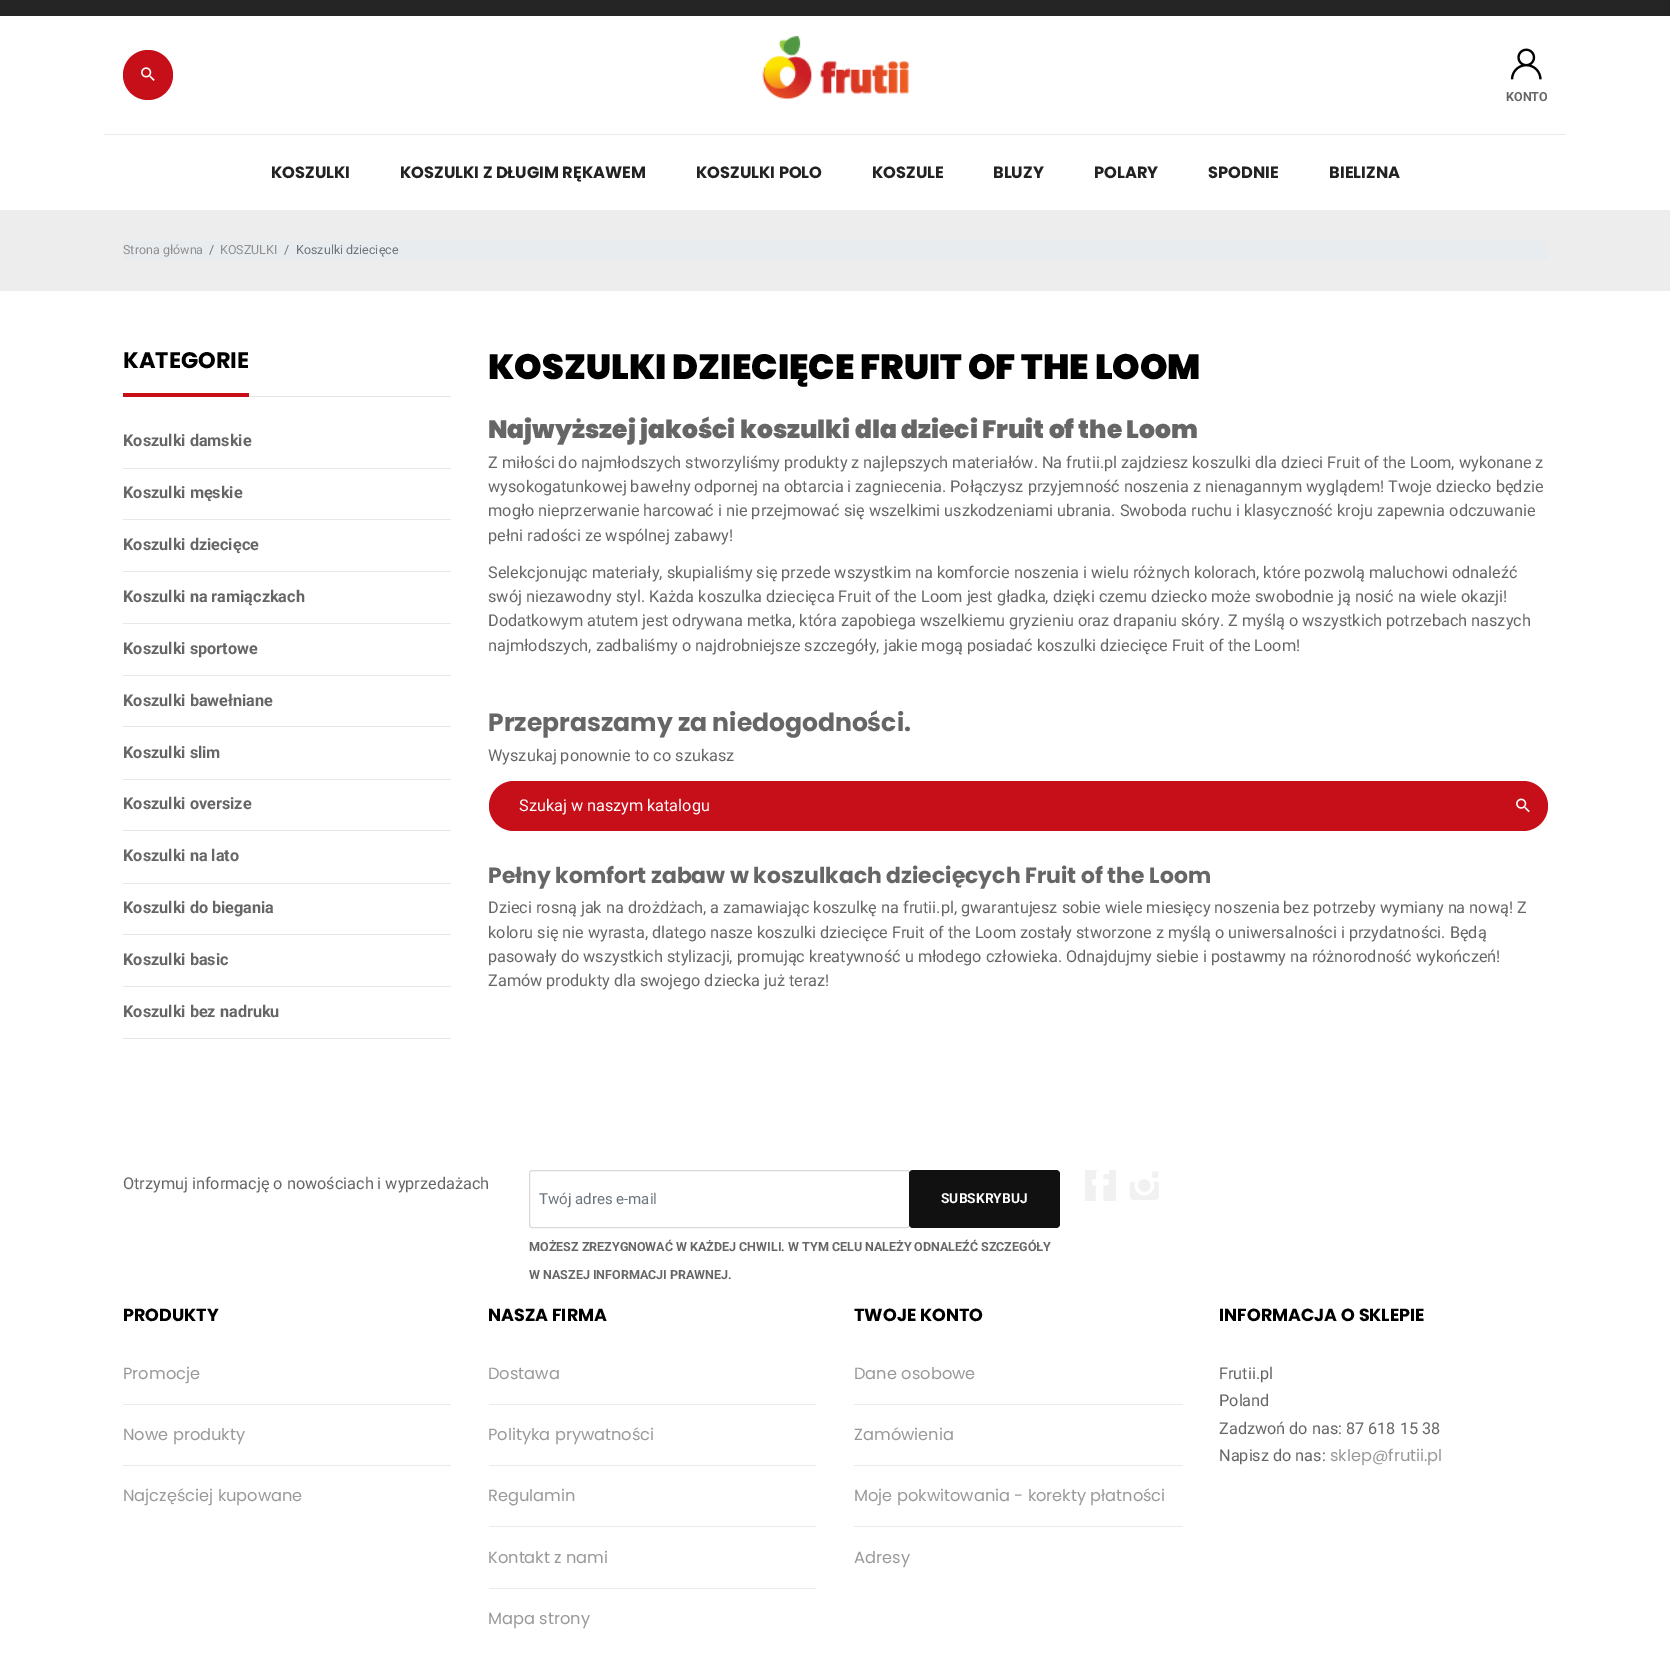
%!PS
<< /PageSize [1670 1659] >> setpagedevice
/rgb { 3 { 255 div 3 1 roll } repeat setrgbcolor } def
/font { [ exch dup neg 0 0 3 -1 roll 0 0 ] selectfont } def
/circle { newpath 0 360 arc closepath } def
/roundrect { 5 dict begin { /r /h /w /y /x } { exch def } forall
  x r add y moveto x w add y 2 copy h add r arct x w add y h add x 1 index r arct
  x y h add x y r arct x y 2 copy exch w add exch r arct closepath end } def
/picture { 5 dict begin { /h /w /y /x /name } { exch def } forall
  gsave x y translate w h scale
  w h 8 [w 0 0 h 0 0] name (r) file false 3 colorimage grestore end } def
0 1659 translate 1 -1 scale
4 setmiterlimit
255 255 255 rgb
0 0 1670 1659 rectfill
37 37 37 rgb
0 0 1670 16 rectfill
199 15 25 rgb
148 75 25 circle fill
(img/1.rgb) 141 67 14 14 picture
(img/2.rgb) 762 35 147 64 picture
(img/3.rgb) 1510 48 32 32 picture
[
  [104 134 1462 1 234 234 234]
  [0 210 1670 81 237 237 237]
  [123 241 1425 19 233 236 239]
  [249 396 202 1 229 229 229]
  [123 393 126 4 199 15 25]
  [123 468 328 1 228 233 235]
  [123 519 328 1 228 233 235]
  [123 571 328 1 228 233 235]
  [123 623 328 1 228 233 235]
  [123 675 328 1 228 233 235]
  [123 726 328 1 228 233 235]
  [123 779 328 1 228 233 235]
  [123 830 328 1 228 233 235]
  [123 883 328 1 228 233 235]
  [123 934 328 1 228 233 235]
  [123 986 328 1 228 233 235]
  [123 1038 328 1 228 233 235]
] { aload pop rgb rectfill } forall
199 15 25 rgb
489 781 1059 50 25 roundrect fill
(img/4.rgb) 1516 798 14 15 picture
217 217 217 rgb
529.5 1170.5 380 57 2.5 roundrect stroke
17 17 17 rgb
909 1170 151 58 4 roundrect fill
241 241 241 rgb
1085 1170 31 31 rectfill
(img/5.rgb) 1092 1170 17 31 picture
1129 1171 30 29 rectfill
(img/6.rgb) 1129 1170 31 31 picture
[
  [123 1404 328 1 234 234 234]
  [123 1465 328 1 234 234 234]
  [489 1404 327 1 234 234 234]
  [489 1465 327 1 234 234 234]
  [489 1526 327 1 234 234 234]
  [489 1588 327 1 234 234 234]
  [854 1404 329 1 234 234 234]
  [854 1465 329 1 234 234 234]
  [854 1526 329 1 234 234 234]
] { aload pop rgb rectfill } forall
/Roboto-Bold 12.5 font
102 102 102 rgb
1506 101 moveto (KONTO) show
/Poppins-Bold 16.25 font
34 34 34 rgb
[
  [(KOSZULKI) 271 178]
  [(KOSZULKI Z DŁUGIM RĘKAWEM) 400 178]
  [(KOSZULKI POLO) 696 178]
  [(KOSZULE) 872 178]
  [(BLUZY) 993 178]
  [(POLARY) 1094 178]
  [(SPODNIE) 1208 178]
  [(BIELIZNA) 1329 178]
] { aload pop moveto show } forall
/Roboto-Regular 12.5 font
144 144 144 rgb
123 254 moveto (Strona główna) show
108 117 125 rgb
209 254 moveto (/) show
144 144 144 rgb
220 254 moveto (KOSZULKI) show
108 117 125 rgb
284 254 moveto (/) show
296 254 moveto (Koszulki dziecięce) show
/Poppins-Bold 22.5 font
0 0 0 rgb
123 368 moveto (KATEGORIE) show
/Roboto-Bold 16.25 font
102 102 102 rgb
[
  [(Koszulki damskie) 123 446]
  [(Koszulki męskie) 123 498]
  [(Koszulki dziecięce) 123 550]
  [(Koszulki na ramiączkach) 123 602]
  [(Koszulki sportowe) 123 654]
  [(Koszulki bawełniane) 123 706]
  [(Koszulki slim) 123 758]
  [(Koszulki oversize) 123 809]
  [(Koszulki na lato) 123 861]
  [(Koszulki do biegania) 123 913]
  [(Koszulki basic) 123 965]
  [(Koszulki bez nadruku) 123 1017]
] { aload pop moveto show } forall
/Poppins-Black 35 font
0 0 0 rgb
488 379 moveto (KOSZULKI DZIECIĘCE FRUIT OF THE LOOM) show
/Poppins-Black 25 font
102 102 102 rgb
488 438 moveto (Najwyższej jakości koszulki dla dzieci Fruit of the Loom) show
/Roboto-Regular 16.25 font
[
  [(Z miłości do najmłodszych stworzyliśmy produkty z najlepszych materiałów. Na frutii.pl zajdziesz koszulki dla dzieci Fruit of the Loom, wykonane z) 488 468]
  [(wysokogatunkowej bawełny odpornej na obtarcia i zagniecenia. Połączysz przyjemność noszenia z nienagannym wyglądem! Twoje dziecko będzie) 488 492]
  [(mogło nieprzerwanie harcować i nie przejmować się wszelkimi uszkodzeniami ubrania. Swoboda ruchu i klasyczność kroju zapewnia odczuwanie) 488 516]
  [(pełni radości ze wspólnej zabawy!) 488 541]
  [(Selekcjonując materiały, skupialiśmy się przede wszystkim na komforcie noszenia i wielu różnych kolorach, które pozwolą maluchowi odnaleźć) 488 578]
  [(swój niezawodny styl. Każda koszulka dziecięca Fruit of the Loom jest gładka, dzięki czemu dziecko może swobodnie ją nosić na wiele okazji!) 488 602]
  [(Dodatkowym atutem jest odrywana metka, która zapobiega wszelkiemu gryzieniu oraz drapaniu skóry. Z myślą o wszystkich potrzebach naszych) 488 626]
  [(najmłodszych, zadbaliśmy o najdrobniejsze szczegóły, jakie mogą posiadać koszulki dziecięce Fruit of the Loom!) 488 651]
] { aload pop moveto show } forall
/Poppins-Bold 25 font
488 731 moveto (Przepraszamy za niedogodności.) show
/Roboto-Regular 16.25 font
488 761 moveto (Wyszukaj ponownie to co szukasz) show
255 255 255 rgb
519 811 moveto (Szukaj w naszym katalogu) show
/Poppins-Bold 21.9 font
102 102 102 rgb
488 883 moveto (Pełny komfort zabaw w koszulkach dziecięcych Fruit of the Loom) show
/Roboto-Regular 16.25 font
[
  [(Dzieci rosną jak na drożdżach, a zamawiając koszulkę na frutii.pl, gwarantujesz sobie wiele miesięcy noszenia bez potrzeby wymiany na nową! Z) 488 913]
  [(koloru się nie wyrasta, dlatego nasze koszulki dziecięce Fruit of the Loom zostały stworzone z myślą o uniwersalności i przydatności. Będą) 488 938]
  [(pasowały do wszystkich stylizacji, promując kreatywność u młodego człowieka. Odnajdujmy siebie i postawmy na różnorodność wykończeń!) 488 962]
  [(Zamów produkty dla swojego dziecka już teraz!) 488 986]
  [(Otrzymuj informację o nowościach i wyprzedażach) 123 1189]
] { aload pop moveto show } forall
/Roboto-Regular 15 font
108 117 125 rgb
539 1204 moveto (Twój adres e-mail) show
/Roboto-Bold 13.75 font
255 255 255 rgb
941 1203 moveto (SUBSKRYBUJ) show
/Roboto-Bold 12.5 font
102 102 102 rgb
529 1251 moveto (MOŻESZ ZREZYGNOWAĆ W KAŻDEJ CHWILI. W TYM CELU NALEŻY ODNALEŹĆ SZCZEGÓŁY) show
529 1279 moveto (W NASZEJ INFORMACJI PRAWNEJ.) show
/Poppins-Bold 17.5 font
0 0 0 rgb
123 1321 moveto (PRODUKTY) show
/Poppins-Regular 16.25 font
153 153 153 rgb
[
  [(Promocje) 123 1379]
  [(Nowe produkty) 123 1440]
  [(Najczęściej kupowane) 123 1501]
] { aload pop moveto show } forall
/Poppins-Bold 17.5 font
0 0 0 rgb
488 1321 moveto (NASZA FIRMA) show
/Poppins-Regular 16.25 font
153 153 153 rgb
[
  [(Dostawa) 488 1379]
  [(Polityka prywatności) 488 1440]
  [(Regulamin) 488 1501]
  [(Kontakt z nami) 488 1563]
  [(Mapa strony) 488 1624]
] { aload pop moveto show } forall
/Poppins-Bold 17.5 font
0 0 0 rgb
854 1321 moveto (TWOJE KONTO) show
/Poppins-Regular 16.25 font
153 153 153 rgb
[
  [(Dane osobowe) 854 1379]
  [(Zamówienia) 854 1440]
  [(Moje pokwitowania - korekty płatności) 854 1501]
  [(Adresy) 854 1563]
] { aload pop moveto show } forall
/Poppins-Bold 17.5 font
0 0 0 rgb
1219 1321 moveto (INFORMACJA O SKLEPIE) show
/Roboto-Regular 16.25 font
102 102 102 rgb
[
  [(Frutii.pl) 1219 1379]
  [(Poland) 1219 1406]
  [(Zadzwoń do nas: 87 618 15 38) 1219 1434]
  [(Napisz do nas:) 1219 1461]
] { aload pop moveto show } forall
/Poppins-Regular 16.25 font
153 153 153 rgb
1330 1461 moveto (sklep@frutii.pl) show
showpage
